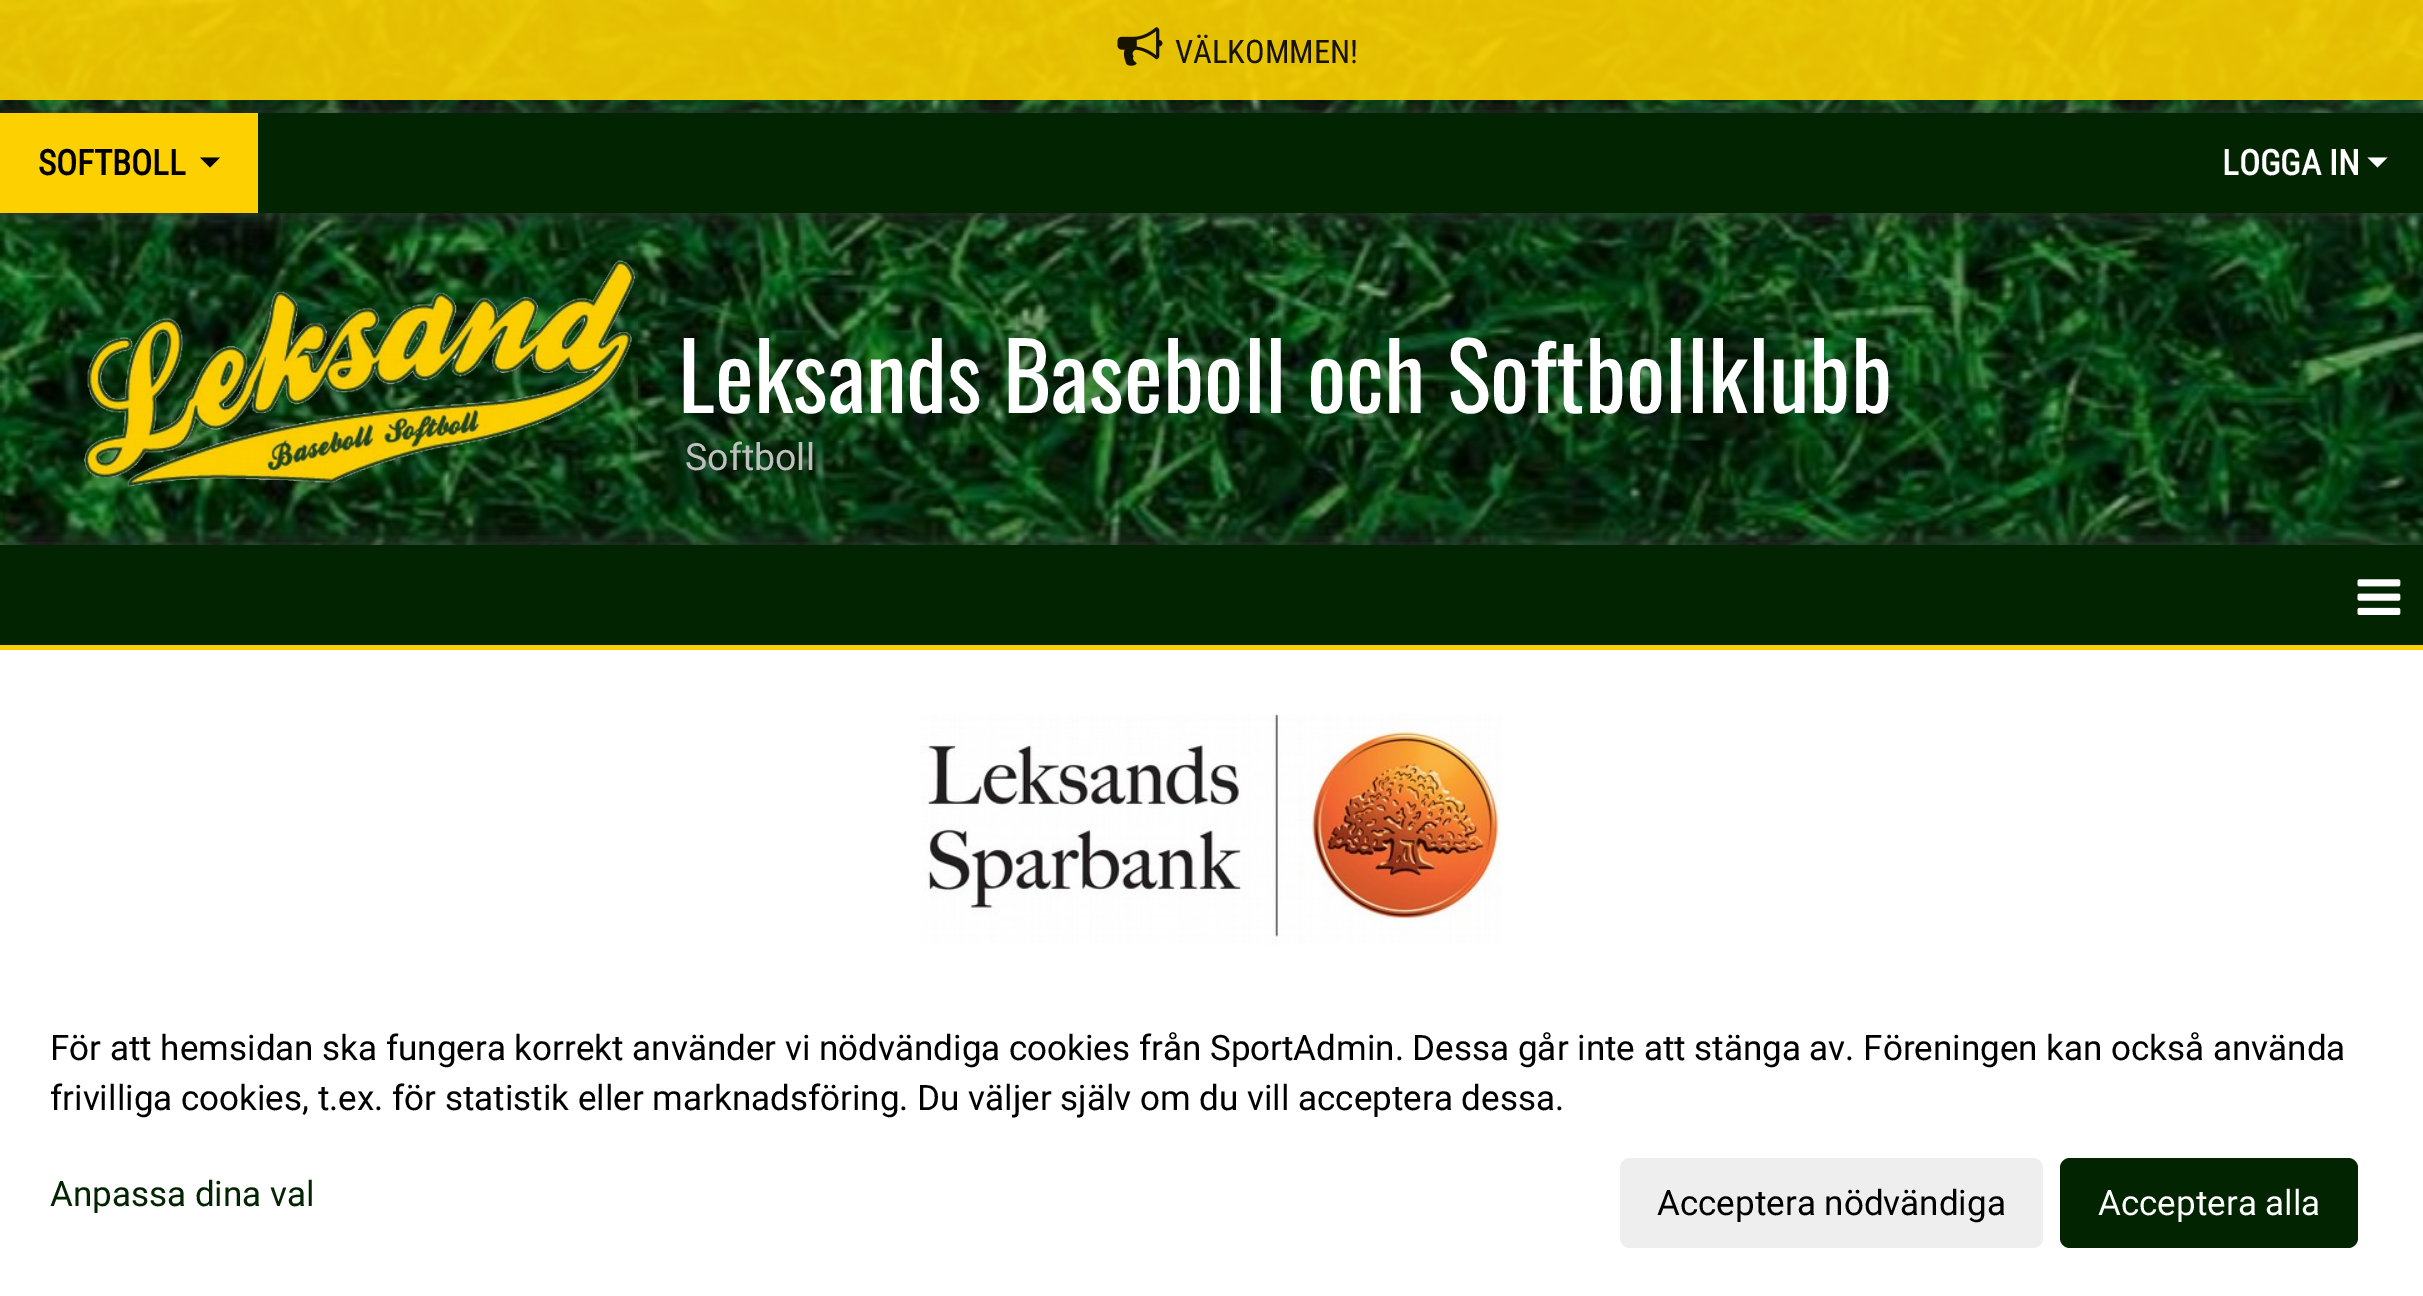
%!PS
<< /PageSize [2423 1296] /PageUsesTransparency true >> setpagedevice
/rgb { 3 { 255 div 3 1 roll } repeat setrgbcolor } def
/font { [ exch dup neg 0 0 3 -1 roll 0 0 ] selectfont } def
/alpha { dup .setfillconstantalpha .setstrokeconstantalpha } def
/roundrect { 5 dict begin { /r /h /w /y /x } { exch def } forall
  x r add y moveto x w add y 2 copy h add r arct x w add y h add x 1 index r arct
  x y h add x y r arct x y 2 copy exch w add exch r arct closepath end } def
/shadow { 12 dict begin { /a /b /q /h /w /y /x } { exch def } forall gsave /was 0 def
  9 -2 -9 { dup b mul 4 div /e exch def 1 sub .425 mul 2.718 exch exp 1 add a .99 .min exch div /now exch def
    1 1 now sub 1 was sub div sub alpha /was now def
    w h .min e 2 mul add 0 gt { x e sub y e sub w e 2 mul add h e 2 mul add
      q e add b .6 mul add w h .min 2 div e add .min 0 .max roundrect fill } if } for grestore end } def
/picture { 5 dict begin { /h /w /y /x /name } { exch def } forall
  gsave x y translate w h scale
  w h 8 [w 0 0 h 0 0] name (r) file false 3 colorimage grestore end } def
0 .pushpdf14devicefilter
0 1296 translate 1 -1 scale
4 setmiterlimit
255 255 255 rgb
0 0 2423 1296 rectfill
(img/1.rgb) 0 0 2423 545 picture
51 51 51 rgb
0 113 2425 100 0 12.5 1 shadow
0.9 alpha
253 208 1 rgb
0 0 2423 100 rectfill
1 alpha
(img/2.rgb) 1117 27 46 39 picture
2 36 0 rgb
258 113 2165 100 rectfill
253 208 1 rgb
0 113 258 100 rectfill
0 0 0 rgb
200 157.5 moveto 220 157.5 lineto 210 167.5 lineto closepath fill
255 255 255 rgb
2367.5 157.5 moveto 2387.5 157.5 lineto 2377.5 167.5 lineto closepath fill
(img/3.rgb) 83 260 553 227 picture
51 51 51 rgb
0 545 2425 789 0 12.5 1 shadow
[
  [0 650 2423 646 255 255 255]
  [0 545 2423 100 2 36 0]
  [0 645 2423 5 253 208 1]
] { aload pop rgb rectfill } forall
(img/4.rgb) 2357 579 44 36 picture
(img/5.rgb) 920 714 581 231 picture
238 238 238 rgb
1620 1158 423 90 10 roundrect fill
2 36 0 rgb
2060 1158 298 90 10 roundrect fill
/RobotoCondensed-Regular 32.5 font
23 19 0 rgb
1175 63 moveto (VÄLKOMMEN!) show
/RobotoCondensed-Bold 35 font
0 0 0 rgb
38 175 moveto (SOFTBOLL) show
255 255 255 rgb
2222 175 moveto (LOGGA IN) show
/Oswald-Regular 92.5 font
678 413 moveto (Leksands Baseboll och Softbollklubb) show
/Roboto-Regular 37.5 font
191 191 191 rgb
685 470 moveto (Softboll) show
/Roboto-Regular 35 font
0 0 0 rgb
50 1060 moveto (För att hemsidan ska fungera korrekt använder vi nödvändiga cookies från SportAdmin. Dessa går inte att stänga av. Föreningen kan också använda) show
50 1110 moveto (frivilliga cookies, t.ex. för statistik eller marknadsföring. Du väljer själv om du vill acceptera dessa.) show
2 36 0 rgb
50 1206 moveto (Anpassa dina val) show
0 0 0 rgb
1657 1215 moveto (Acceptera nödvändiga) show
255 255 255 rgb
2098 1215 moveto (Acceptera alla) show
.poppdf14devicefilter showpage
